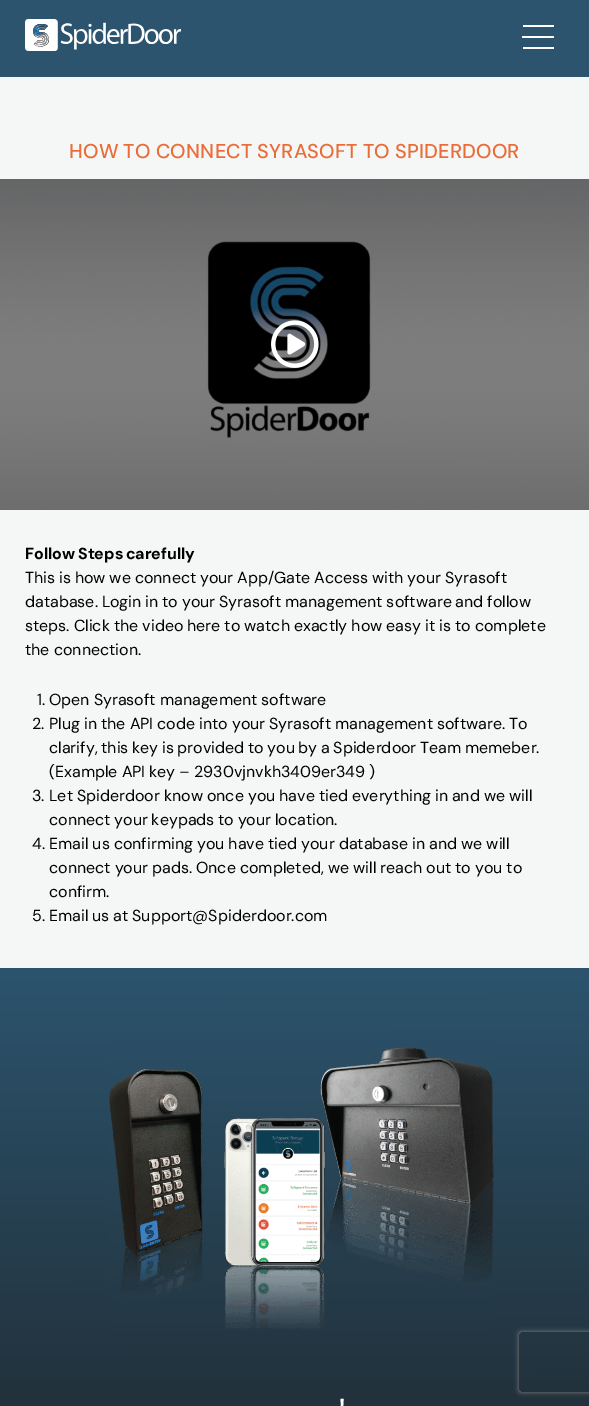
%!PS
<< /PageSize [589 1406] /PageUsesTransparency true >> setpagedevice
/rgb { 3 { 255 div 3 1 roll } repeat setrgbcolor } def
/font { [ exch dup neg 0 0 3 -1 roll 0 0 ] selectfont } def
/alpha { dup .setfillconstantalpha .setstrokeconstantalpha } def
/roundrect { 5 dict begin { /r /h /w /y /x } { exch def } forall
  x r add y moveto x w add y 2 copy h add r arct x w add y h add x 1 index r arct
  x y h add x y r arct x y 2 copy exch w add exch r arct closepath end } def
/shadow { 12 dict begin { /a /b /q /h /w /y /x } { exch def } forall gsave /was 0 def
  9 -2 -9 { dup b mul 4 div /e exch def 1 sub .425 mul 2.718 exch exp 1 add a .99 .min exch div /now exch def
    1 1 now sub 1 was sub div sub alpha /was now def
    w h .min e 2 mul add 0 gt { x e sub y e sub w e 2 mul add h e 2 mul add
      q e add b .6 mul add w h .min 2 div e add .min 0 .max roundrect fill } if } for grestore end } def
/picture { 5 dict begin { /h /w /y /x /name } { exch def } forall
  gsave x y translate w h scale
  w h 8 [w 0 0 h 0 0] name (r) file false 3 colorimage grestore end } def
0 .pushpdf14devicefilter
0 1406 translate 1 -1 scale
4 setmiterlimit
244 247 245 rgb
0 0 589 1406 rectfill
44 84 110 rgb
0 0 589 77 rectfill
(img/1.rgb) 25 19 156 32 picture
255 255 255 rgb
523 25 31 2 rectfill
522 36 32 2 1 roundrect fill
523 47 31 2 rectfill
(img/2.rgb) 0 179 589 331 picture
(img/3.rgb) 271 320 48 48 picture
gsave 0 968 moveto 589 968 lineto 589 1406 lineto 0 1406 lineto closepath clip newpath
<< /ShadingType 2 /ColorSpace /DeviceRGB /Coords [294 968 295 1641] /Extend [true true] /Function << /FunctionType 2 /Domain [0 1] /C0 [0.173 0.329 0.431] /C1 [0.11 0.118 0.122] /N 1 >> >> shfill grestore
(img/4.rgb) 109 1047 385 285 picture
gsave
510 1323 moveto 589 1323 lineto 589 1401 lineto 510 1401 lineto closepath 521 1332 moveto 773 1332 lineto 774 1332 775 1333 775 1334 curveto 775 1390 lineto 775 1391 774 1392 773 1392 curveto 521 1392 lineto 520 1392 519 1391 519 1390 curveto 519 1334 lineto 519 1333 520 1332 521 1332 curveto closepath eoclip newpath
128 128 128 rgb
519 1332 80 60 2 2.5 1 shadow
grestore
/DMSans-Medium 20 font
233 108 57 rgb
69 158 moveto -0.5 0 32 0.2 0 (HOW TO CONNECT SYRASOFT TO SPIDERDOOR) awidthshow
/DMSans-Bold 16 font
0 0 0 rgb
25 559 moveto -1 0 32 (Follow Steps carefully) widthshow
/DMSans-Regular 16 font
25 583 moveto -0.4 0 32 (This is how we connect your App/Gate Access with your Syrasoft) widthshow
25 607 moveto -0.4 0 32 (database. Login in to your Syrasoft management software and follow) widthshow
25 631 moveto -0.25 0 32 (steps. Click the video here to watch exactly how easy it is to complete) widthshow
25 655 moveto (the connection.) show
37 705 moveto (1.) show
49 705 moveto -0.25 0 32 (Open Syrasoft management software) widthshow
32 729 moveto (2.) show
49 729 moveto -0.25 0 32 (Plug in the API code into your Syrasoft management software. To) widthshow
49 753 moveto -0.6 0 32 (clarify, this key is provided to you by a Spiderdoor Team memeber.) widthshow
49 777 moveto -0.25 0 32 (\(Example API key – 2930vjnvkh3409er349 \)) widthshow
32 801 moveto (3.) show
49 801 moveto -0.25 0 32 (Let Spiderdoor know once you have tied everything in and we will) widthshow
49 825 moveto -0.5 0 32 (connect your keypads to your location.) widthshow
32 849 moveto (4.) show
49 849 moveto -0.25 0 32 (Email us confirming you have tied your database in and we will) widthshow
49 873 moveto -0.25 0 32 (connect your pads. Once completed, we will reach out to you to) widthshow
49 897 moveto (confirm.) show
32 921 moveto (5.) show
49 921 moveto -0.4 0 32 (Email us at Support@Spiderdoor.com) widthshow
/DMSans-Medium 36 font
255 255 255 rgb
339 1426 moveto -1 0 32 (') widthshow
.poppdf14devicefilter showpage
